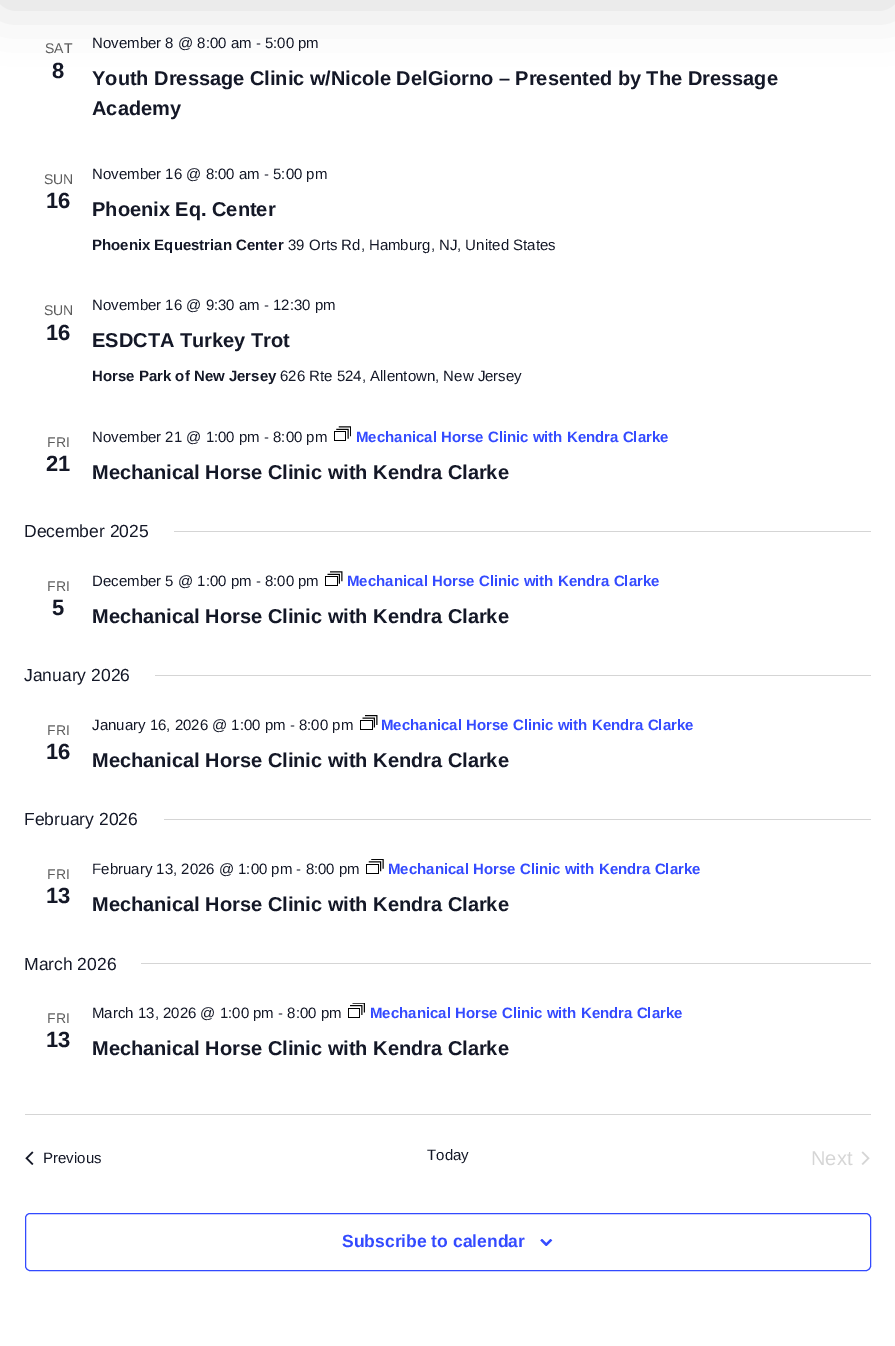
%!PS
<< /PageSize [895 1346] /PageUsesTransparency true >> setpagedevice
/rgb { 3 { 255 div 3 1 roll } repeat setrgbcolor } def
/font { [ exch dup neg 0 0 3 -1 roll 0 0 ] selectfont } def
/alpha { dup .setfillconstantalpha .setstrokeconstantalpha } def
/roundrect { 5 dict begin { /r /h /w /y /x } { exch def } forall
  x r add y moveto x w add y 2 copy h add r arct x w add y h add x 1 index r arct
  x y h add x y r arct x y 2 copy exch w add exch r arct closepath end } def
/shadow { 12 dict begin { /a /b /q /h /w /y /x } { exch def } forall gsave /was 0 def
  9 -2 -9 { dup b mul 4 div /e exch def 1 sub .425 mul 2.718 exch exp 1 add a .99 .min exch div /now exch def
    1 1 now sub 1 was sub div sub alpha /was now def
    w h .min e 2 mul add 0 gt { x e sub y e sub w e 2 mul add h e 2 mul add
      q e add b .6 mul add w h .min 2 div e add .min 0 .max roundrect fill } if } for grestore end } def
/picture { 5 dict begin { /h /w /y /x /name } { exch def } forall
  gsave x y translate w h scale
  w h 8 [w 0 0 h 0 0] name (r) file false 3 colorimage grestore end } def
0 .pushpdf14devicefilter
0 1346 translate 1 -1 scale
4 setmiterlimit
255 255 255 rgb
0 0 895 1346 rectfill
0 0 0 rgb
0 -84 895 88 0 28 0.15 shadow
(img/1.rgb) 334 426 17 15 picture
213 213 213 rgb
174 531 697 1 rectfill
(img/2.rgb) 325 571 18 15 picture
155 675 716 1 rectfill
(img/3.rgb) 360 715 18 15 picture
164 819 707 1 rectfill
(img/4.rgb) 366 859 18 15 picture
141 963 730 1 rectfill
(img/5.rgb) 348 1003 17 15 picture
25 1114 846 1 rectfill
(img/6.rgb) 25 1151 9 14 picture
(img/7.rgb) 861 1151 9 14 picture
51 74 255 rgb
25.5 1213.5 845 57 4.5 roundrect stroke
(img/8.rgb) 540 1239 13 7 picture
/LiberationSans-Regular 14 font
93 93 93 rgb
45 53 moveto (SAT) show
/LiberationSans-Bold 22 font
20 24 39 rgb
52 78 moveto (8) show
/LiberationSans-Regular 15 font
92 48 moveto (November 8 @ 8:00 am - 5:00 pm) show
/LiberationSans-Bold 20 font
92 85 moveto (Youth Dressage Clinic w/Nicole DelGiorno – Presented by The Dressage) show
92 115 moveto (Academy) show
/LiberationSans-Regular 14 font
93 93 93 rgb
44 184 moveto (SUN) show
/LiberationSans-Bold 22 font
20 24 39 rgb
46 208 moveto (16) show
/LiberationSans-Regular 15 font
92 179 moveto (November 16 @ 8:00 am - 5:00 pm) show
/LiberationSans-Bold 20 font
92 216 moveto (Phoenix Eq. Center) show
/LiberationSans-Bold 15 font
92 250 moveto (Phoenix Equestrian Center) show
/LiberationSans-Regular 15 font
288 250 moveto (39 Orts Rd, Hamburg, NJ, United States) show
/LiberationSans-Regular 14 font
93 93 93 rgb
44 315 moveto (SUN) show
/LiberationSans-Bold 22 font
20 24 39 rgb
46 340 moveto (16) show
/LiberationSans-Regular 15 font
92 310 moveto (November 16 @ 9:30 am - 12:30 pm) show
/LiberationSans-Bold 20 font
92 347 moveto (ESDCTA Turkey Trot) show
/LiberationSans-Bold 15 font
92 381 moveto (Horse Park of New Jersey) show
/LiberationSans-Regular 15 font
280 381 moveto (626 Rte 524, Allentown, New Jersey) show
/LiberationSans-Regular 14 font
93 93 93 rgb
47 447 moveto (FRI) show
/LiberationSans-Bold 22 font
20 24 39 rgb
46 471 moveto (21) show
/LiberationSans-Regular 15 font
92 442 moveto (November 21 @ 1:00 pm - 8:00 pm) show
/LiberationSans-Bold 15 font
51 74 255 rgb
356 442 moveto (Mechanical Horse Clinic with Kendra Clarke) show
/LiberationSans-Bold 20 font
20 24 39 rgb
92 479 moveto (Mechanical Horse Clinic with Kendra Clarke) show
/LiberationSans-Regular 17.5 font
24 537 moveto (December 2025) show
/LiberationSans-Regular 14 font
93 93 93 rgb
47 591 moveto (FRI) show
/LiberationSans-Bold 22 font
20 24 39 rgb
52 615 moveto (5) show
/LiberationSans-Regular 15 font
92 586 moveto (December 5 @ 1:00 pm - 8:00 pm) show
/LiberationSans-Bold 15 font
51 74 255 rgb
347 586 moveto (Mechanical Horse Clinic with Kendra Clarke) show
/LiberationSans-Bold 20 font
20 24 39 rgb
92 623 moveto (Mechanical Horse Clinic with Kendra Clarke) show
/LiberationSans-Regular 17.5 font
24 681 moveto (January 2026) show
/LiberationSans-Regular 14 font
93 93 93 rgb
47 735 moveto (FRI) show
/LiberationSans-Bold 22 font
20 24 39 rgb
46 759 moveto (16) show
/LiberationSans-Regular 15 font
92 730 moveto (January 16, 2026 @ 1:00 pm - 8:00 pm) show
/LiberationSans-Bold 15 font
51 74 255 rgb
381 730 moveto (Mechanical Horse Clinic with Kendra Clarke) show
/LiberationSans-Bold 20 font
20 24 39 rgb
92 767 moveto (Mechanical Horse Clinic with Kendra Clarke) show
/LiberationSans-Regular 17.5 font
24 825 moveto (February 2026) show
/LiberationSans-Regular 14 font
93 93 93 rgb
47 879 moveto (FRI) show
/LiberationSans-Bold 22 font
20 24 39 rgb
46 903 moveto (13) show
/LiberationSans-Regular 15 font
92 874 moveto (February 13, 2026 @ 1:00 pm - 8:00 pm) show
/LiberationSans-Bold 15 font
51 74 255 rgb
388 874 moveto (Mechanical Horse Clinic with Kendra Clarke) show
/LiberationSans-Bold 20 font
20 24 39 rgb
92 911 moveto (Mechanical Horse Clinic with Kendra Clarke) show
/LiberationSans-Regular 17.5 font
24 970 moveto (March 2026) show
/LiberationSans-Regular 14 font
93 93 93 rgb
47 1023 moveto (FRI) show
/LiberationSans-Bold 22 font
20 24 39 rgb
46 1047 moveto (13) show
/LiberationSans-Regular 15 font
92 1018 moveto (March 13, 2026 @ 1:00 pm - 8:00 pm) show
/LiberationSans-Bold 15 font
51 74 255 rgb
370 1018 moveto (Mechanical Horse Clinic with Kendra Clarke) show
/LiberationSans-Bold 20 font
20 24 39 rgb
92 1055 moveto (Mechanical Horse Clinic with Kendra Clarke) show
/LiberationSans-Regular 15 font
43 1163 moveto (Previous) show
427 1160 moveto (Today) show
/LiberationSans-Regular 20 font
213 213 213 rgb
811 1165 moveto (Next) show
/LiberationSans-Bold 17.5 font
51 74 255 rgb
342 1247 moveto (Subscribe to calendar) show
.poppdf14devicefilter showpage
